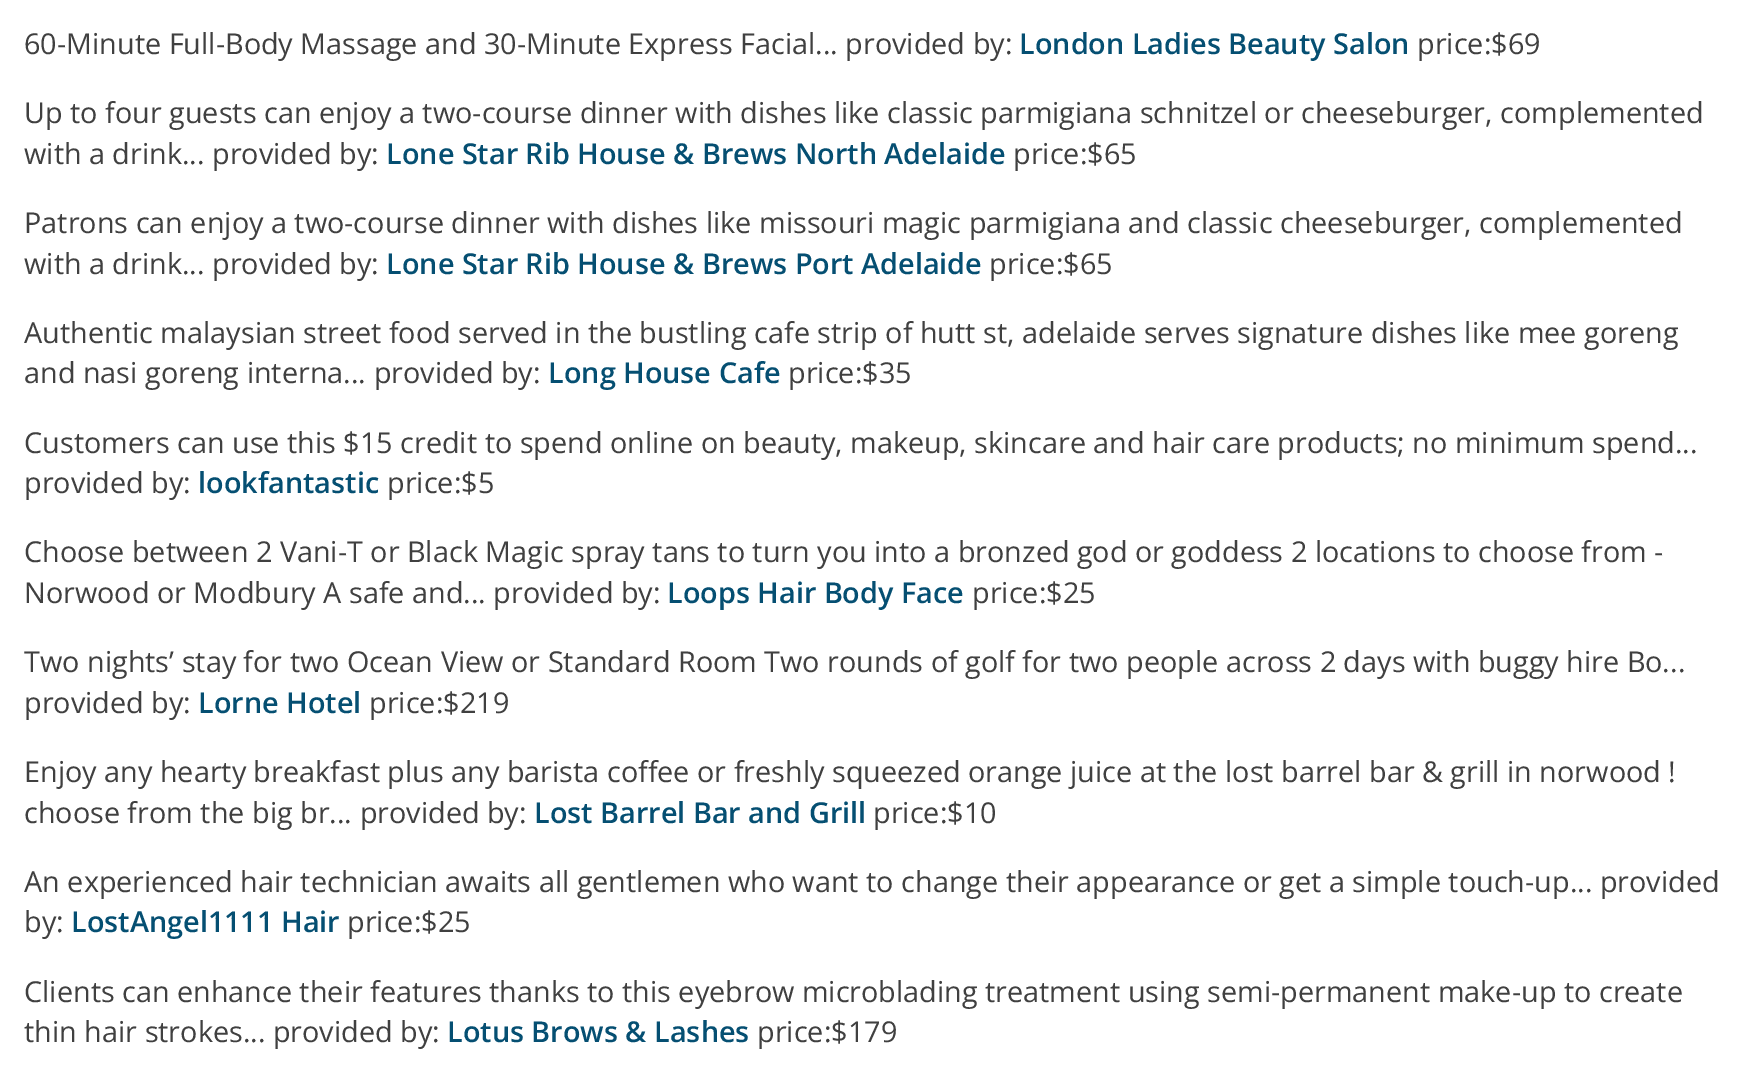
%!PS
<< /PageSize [1746 1079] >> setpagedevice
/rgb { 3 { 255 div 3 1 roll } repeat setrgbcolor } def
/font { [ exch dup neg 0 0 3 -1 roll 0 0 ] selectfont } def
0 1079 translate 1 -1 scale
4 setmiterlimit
255 255 255 rgb
0 0 1746 1079 rectfill
/OpenSans-Regular 28.8 font
64 64 64 rgb
24 54 moveto (60-Minute Full-Body Massage and 30-Minute Express Facial... provided by:) show
/OpenSans-SemiBold 28.8 font
5 79 114 rgb
1019 54 moveto (London Ladies Beauty Salon) show
/OpenSans-Regular 28.8 font
64 64 64 rgb
[
  [(price:$69) 1417 54]
  [(Up to four guests can enjoy a two-course dinner with dishes like classic parmigiana schnitzel or cheeseburger, complemented) 24 123]
  [(with a drink... provided by:) 24 164]
] { aload pop moveto show } forall
/OpenSans-SemiBold 28.8 font
5 79 114 rgb
386 164 moveto (Lone Star Rib House & Brews North Adelaide) show
/OpenSans-Regular 28.8 font
64 64 64 rgb
[
  [(price:$65) 1013 164]
  [(Patrons can enjoy a two-course dinner with dishes like missouri magic parmigiana and classic cheeseburger, complemented) 24 233]
  [(with a drink... provided by:) 24 274]
] { aload pop moveto show } forall
/OpenSans-SemiBold 28.8 font
5 79 114 rgb
386 274 moveto (Lone Star Rib House & Brews Port Adelaide) show
/OpenSans-Regular 28.8 font
64 64 64 rgb
[
  [(price:$65) 989 274]
  [(Authentic malaysian street food served in the bustling cafe strip of hutt st, adelaide serves signature dishes like mee goreng) 24 343]
  [(and nasi goreng interna... provided by:) 24 383]
] { aload pop moveto show } forall
/OpenSans-SemiBold 28.8 font
5 79 114 rgb
548 383 moveto (Long House Cafe) show
/OpenSans-Regular 28.8 font
64 64 64 rgb
[
  [(price:$35) 788 383]
  [(Customers can use this $15 credit to spend online on beauty, makeup, skincare and hair care products; no minimum spend...) 24 453]
  [(provided by:) 24 493]
] { aload pop moveto show } forall
/OpenSans-SemiBold 28.8 font
5 79 114 rgb
198 493 moveto (lookfantastic) show
/OpenSans-Regular 28.8 font
64 64 64 rgb
[
  [(price:$5) 387 493]
  [(Choose between 2 Vani-T or Black Magic spray tans to turn you into a bronzed god or goddess 2 locations to choose from -) 24 562]
  [(Norwood or Modbury A safe and... provided by:) 24 603]
] { aload pop moveto show } forall
/OpenSans-SemiBold 28.8 font
5 79 114 rgb
667 603 moveto (Loops Hair Body Face) show
/OpenSans-Regular 28.8 font
64 64 64 rgb
[
  [(price:$25) 972 603]
  [(Two nights’ stay for two Ocean View or Standard Room Two rounds of golf for two people across 2 days with buggy hire Bo...) 24 672]
  [(provided by:) 24 713]
] { aload pop moveto show } forall
/OpenSans-SemiBold 28.8 font
5 79 114 rgb
198 713 moveto (Lorne Hotel) show
/OpenSans-Regular 28.8 font
64 64 64 rgb
[
  [(price:$219) 369 713]
  [(Enjoy any hearty breakfast plus any barista coffee or freshly squeezed orange juice at the lost barrel bar & grill in norwood !) 24 782]
  [(choose from the big br... provided by:) 24 823]
] { aload pop moveto show } forall
/OpenSans-SemiBold 28.8 font
5 79 114 rgb
534 823 moveto (Lost Barrel Bar and Grill) show
/OpenSans-Regular 28.8 font
64 64 64 rgb
[
  [(price:$10) 873 823]
  [(An experienced hair technician awaits all gentlemen who want to change their appearance or get a simple touch-up... provided) 24 892]
  [(by:) 24 932]
] { aload pop moveto show } forall
/OpenSans-SemiBold 28.8 font
5 79 114 rgb
71 932 moveto (LostAngel1111 Hair) show
/OpenSans-Regular 28.8 font
64 64 64 rgb
[
  [(price:$25) 347 932]
  [(Clients can enhance their features thanks to this eyebrow microblading treatment using semi-permanent make-up to create) 24 1002]
  [(thin hair strokes... provided by:) 24 1042]
] { aload pop moveto show } forall
/OpenSans-SemiBold 28.8 font
5 79 114 rgb
447 1042 moveto (Lotus Brows & Lashes) show
/OpenSans-Regular 28.8 font
64 64 64 rgb
757 1042 moveto (price:$179) show
showpage
